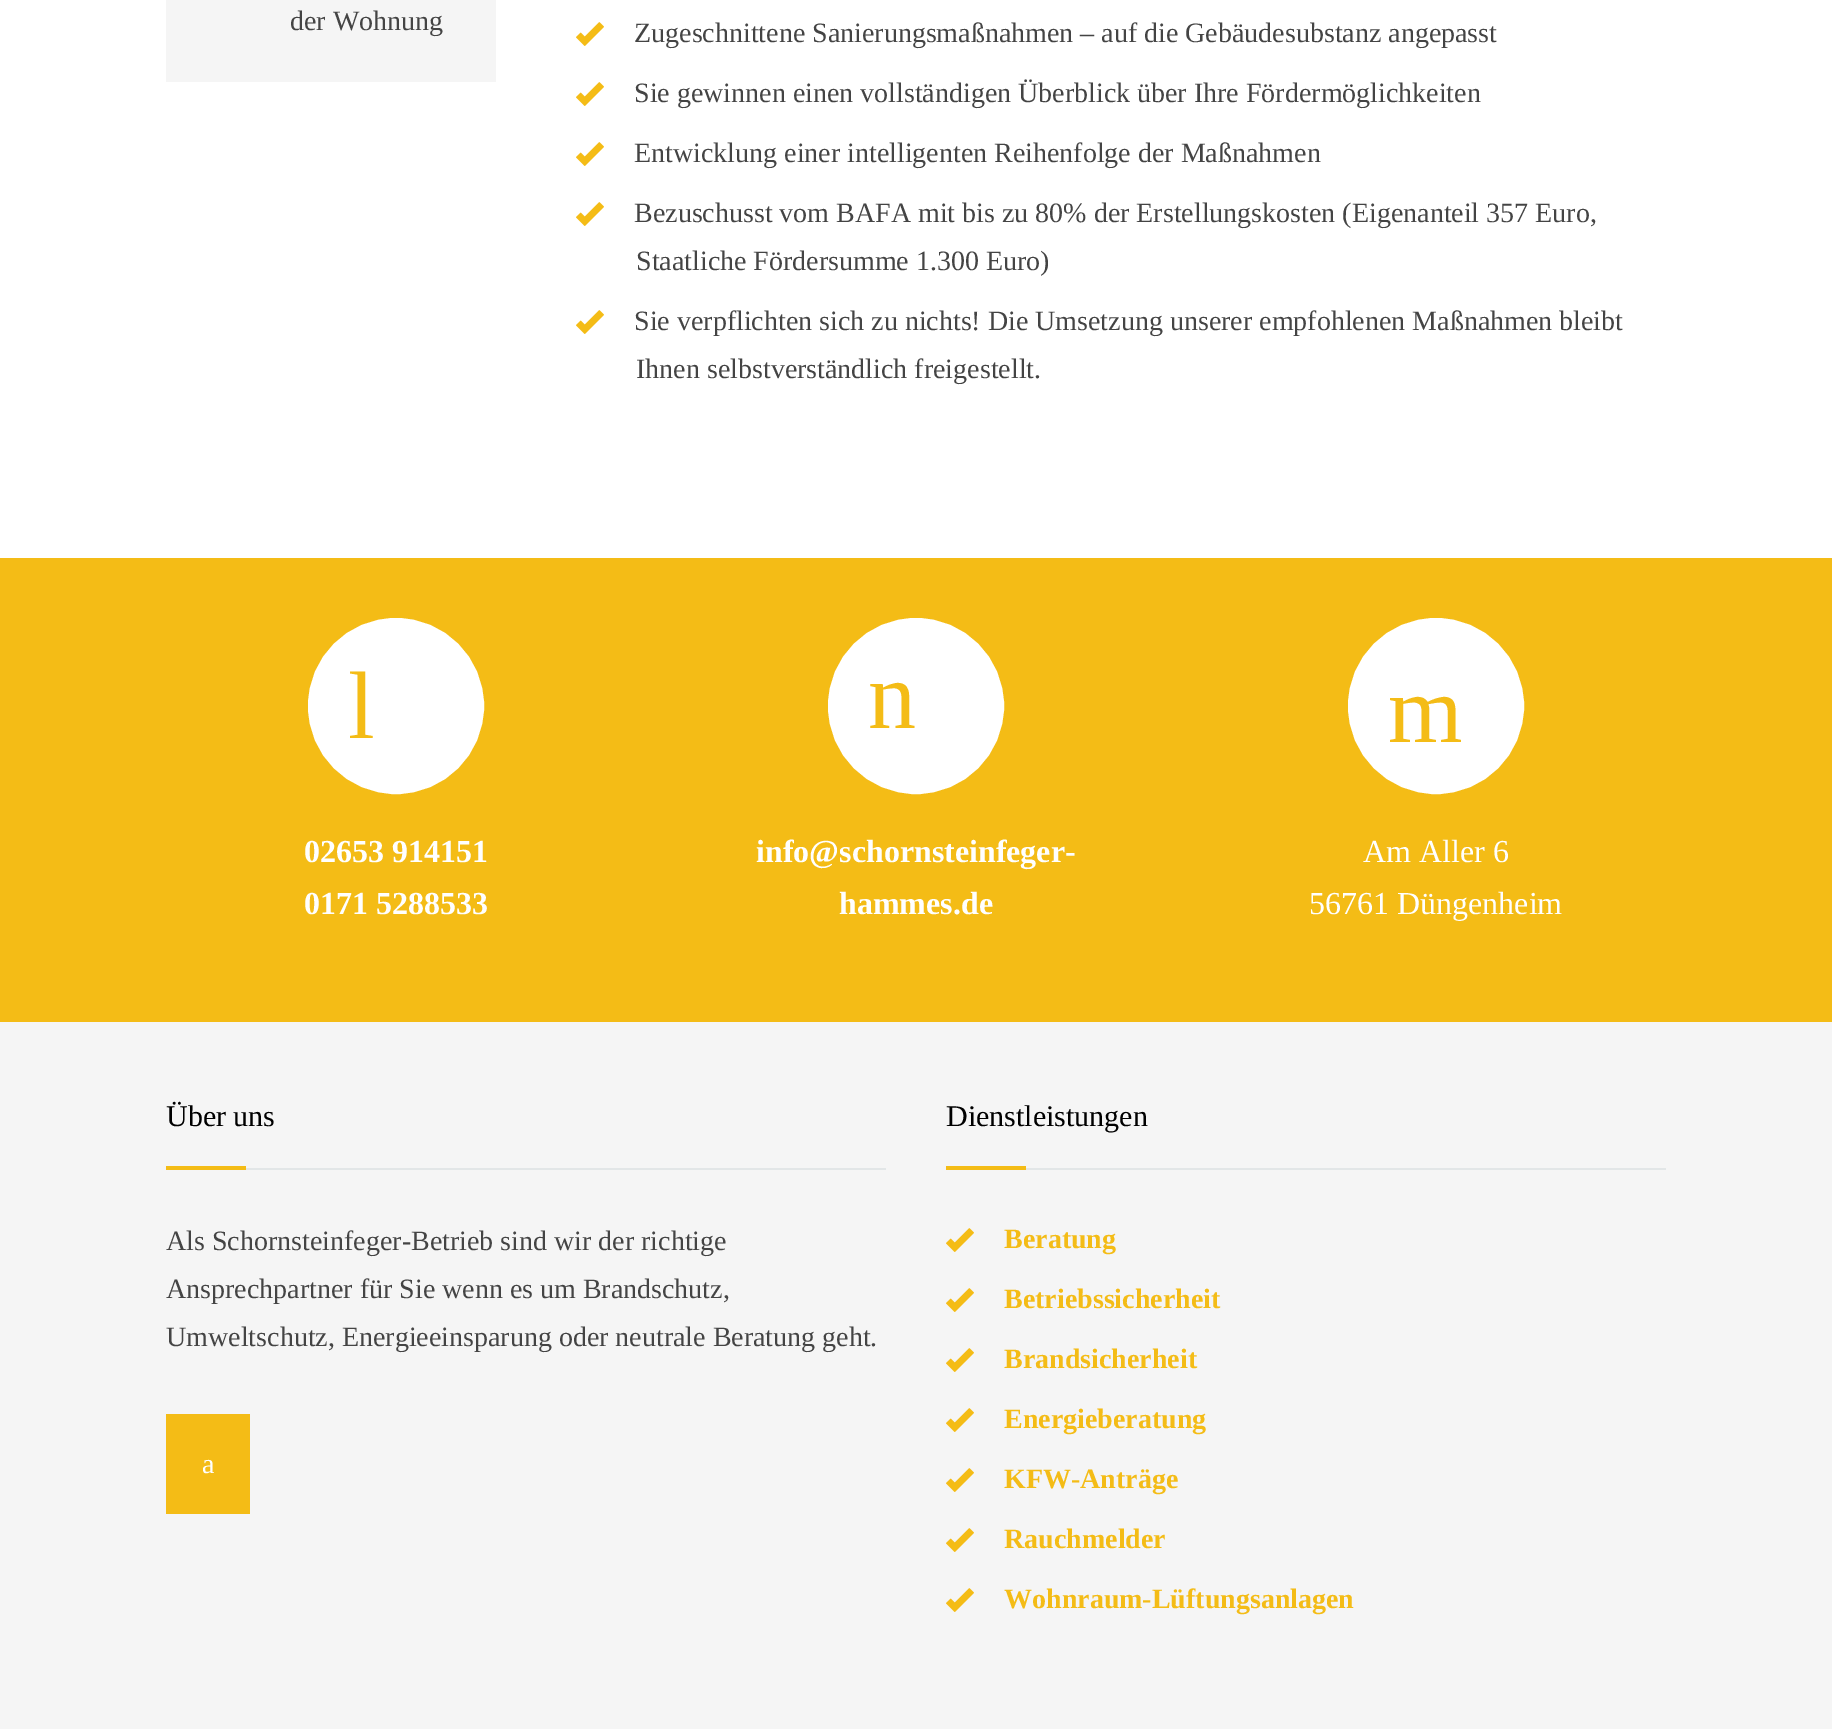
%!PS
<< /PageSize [1832 1729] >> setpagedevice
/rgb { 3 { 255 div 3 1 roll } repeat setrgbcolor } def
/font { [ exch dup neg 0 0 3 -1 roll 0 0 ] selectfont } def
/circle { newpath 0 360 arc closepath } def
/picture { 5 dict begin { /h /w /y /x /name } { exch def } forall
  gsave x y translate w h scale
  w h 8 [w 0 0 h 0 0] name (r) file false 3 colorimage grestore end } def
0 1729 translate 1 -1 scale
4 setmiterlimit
255 255 255 rgb
0 0 1832 1729 rectfill
245 245 245 rgb
166 0 330 82 rectfill
(img/1.rgb) 576 22 28 24 picture
(img/1.rgb) 576 82 28 24 picture
(img/1.rgb) 576 142 28 24 picture
(img/1.rgb) 576 202 28 24 picture
(img/1.rgb) 576 310 28 24 picture
244 188 22 rgb
0 558 1832 464 rectfill
255 255 255 rgb
396 706 87 circle gsave fill grestore
2 setlinewidth
stroke
916 706 87 circle gsave fill grestore
stroke
1436 706 87 circle gsave fill grestore
stroke
[
  [0 1022 1832 707 245 245 245]
  [246 1168 640 2 226 230 231]
  [166 1166 80 4 244 188 22]
  [166 1414 84 100 244 188 22]
  [1026 1168 640 2 226 230 231]
  [946 1166 80 4 244 188 22]
] { aload pop rgb rectfill } forall
(img/2.rgb) 946 1228 28 24 picture
(img/2.rgb) 946 1288 28 24 picture
(img/2.rgb) 946 1348 28 24 picture
(img/2.rgb) 946 1408 28 24 picture
(img/2.rgb) 946 1468 28 24 picture
(img/2.rgb) 946 1528 28 24 picture
(img/2.rgb) 946 1588 28 24 picture
/LiberationSerif-Regular 28 font
68 68 68 rgb
[
  [(der Wohnung) 290 30]
  [(Zugeschnittene Sanierungsmaßnahmen – auf die Gebäudesubstanz angepasst) 634 42]
  [(Sie gewinnen einen vollständigen Überblick über Ihre Fördermöglichkeiten) 634 102]
  [(Entwicklung einer intelligenten Reihenfolge der Maßnahmen) 634 162]
  [(Bezuschusst vom BAFA mit bis zu 80% der Erstellungskosten \(Eigenanteil 357 Euro,) 634 222]
  [(Staatliche Fördersumme 1.300 Euro\)) 636 270]
  [(Sie verpflichten sich zu nichts! Die Umsetzung unserer empfohlenen Maßnahmen bleibt) 634 330]
  [(Ihnen selbstverständlich freigestellt.) 636 378]
] { aload pop moveto show } forall
/LiberationSerif-Regular 96 font
244 188 22 rgb
348 738 moveto (l) show
/LiberationSerif-Bold 32 font
255 255 255 rgb
304 862 moveto (02653 914151) show
304 914 moveto (0171 5288533) show
/LiberationSerif-Regular 96 font
244 188 22 rgb
868 728 moveto (n) show
/LiberationSerif-Bold 32 font
255 255 255 rgb
756 862 moveto (info@schornsteinfeger-) show
839 914 moveto (hammes.de) show
/LiberationSerif-Regular 96 font
244 188 22 rgb
1388 742 moveto (m) show
/LiberationSerif-Regular 32 font
255 255 255 rgb
1363 862 moveto (Am Aller 6) show
1309 914 moveto (56761 Düngenheim) show
/LiberationSerif-Regular 30 font
0 0 0 rgb
166 1126 moveto (Über uns) show
/LiberationSerif-Regular 28 font
68 68 68 rgb
[
  [(Als Schornsteinfeger-Betrieb sind wir der richtige) 166 1250]
  [(Ansprechpartner für Sie wenn es um Brandschutz,) 166 1298]
  [(Umweltschutz, Energieeinsparung oder neutrale Beratung geht.) 166 1346]
] { aload pop moveto show } forall
255 255 255 rgb
202 1473 moveto (a) show
/LiberationSerif-Regular 30 font
0 0 0 rgb
946 1126 moveto (Dienstleistungen) show
/LiberationSerif-Bold 28 font
244 188 22 rgb
[
  [(Beratung) 1004 1248]
  [(Betriebssicherheit) 1004 1308]
  [(Brandsicherheit) 1004 1368]
  [(Energieberatung) 1004 1428]
  [(KFW-Anträge) 1004 1488]
  [(Rauchmelder) 1004 1548]
  [(Wohnraum-Lüftungsanlagen) 1004 1608]
] { aload pop moveto show } forall
showpage
